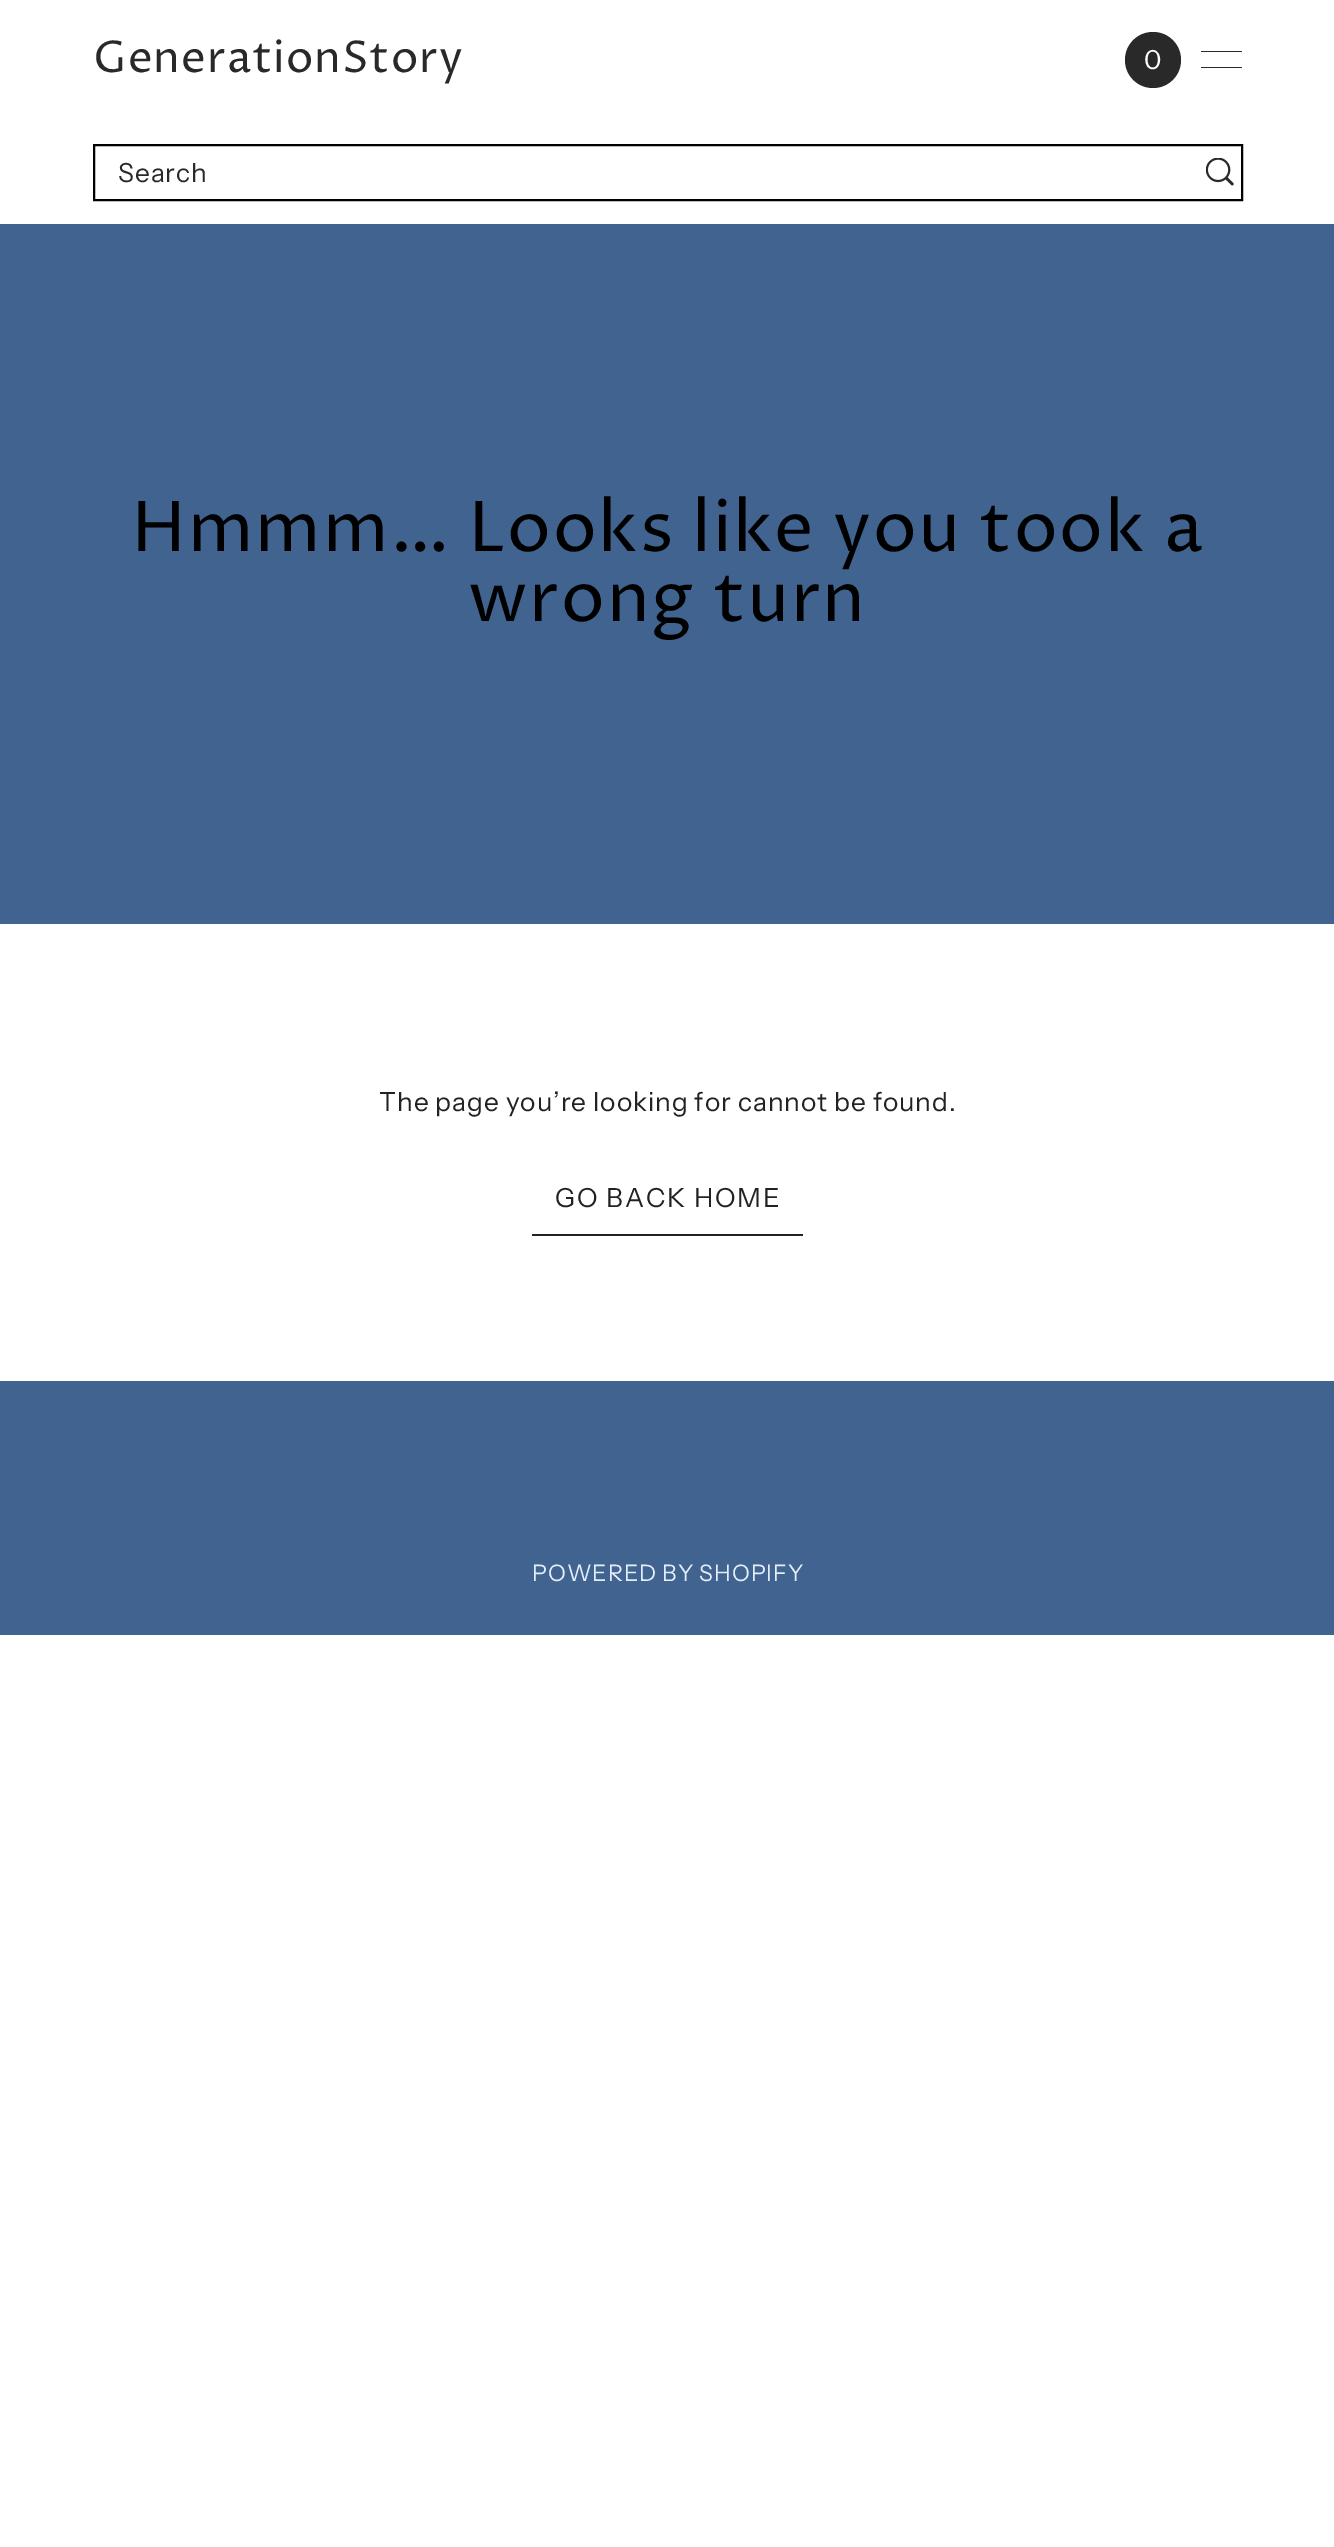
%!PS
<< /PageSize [1334 2547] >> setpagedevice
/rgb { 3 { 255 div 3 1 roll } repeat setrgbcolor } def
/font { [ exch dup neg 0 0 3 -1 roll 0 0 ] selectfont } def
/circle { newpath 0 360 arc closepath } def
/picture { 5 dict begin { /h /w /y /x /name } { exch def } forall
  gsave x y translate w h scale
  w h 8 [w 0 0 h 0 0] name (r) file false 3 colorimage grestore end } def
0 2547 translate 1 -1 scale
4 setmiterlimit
255 255 255 rgb
0 0 1334 2547 rectfill
41 41 41 rgb
1153 60 28 circle fill
1201 51 41 1 rectfill
1201 67 41 1 rectfill
0 0 0 rgb
2 setlinewidth
94 145 1148 55 rectstroke
(img/1.rgb) 1206 158 28 28 picture
[
  [0 224 1334 700 64 99 144]
  [532 1234 271 2 34 34 34]
  [0 1381 1334 254 64 99 144]
] { aload pop rgb rectfill } forall
/ProzaLibre-Regular 43.75 font
41 41 41 rgb
93 72 moveto 0.9 0 (GenerationStory) ashow
/InstrumentSans-Regular 26.25 font
255 255 255 rgb
1144 69 moveto 0.9 0 (0) ashow
41 41 41 rgb
118 182 moveto 0.9 0 (Search) ashow
/ProzaLibre-Regular 70 font
0 0 0 rgb
131 551 moveto 1.75 0 (Hmmm… Looks like you took a) ashow
468 621 moveto 1.75 0 (wrong turn) ashow
/InstrumentSans-Regular 26.25 font
34 34 34 rgb
379 1111 moveto 0.9 0 (The page you’re looking for cannot be found.) ashow
555 1207 moveto 1.75 0 (GO BACK HOME) ashow
/InstrumentSans-Regular 22.75 font
228 238 250 rgb
532 1581 moveto 0.9 0 (POWERED BY SHOPIFY) ashow
showpage
